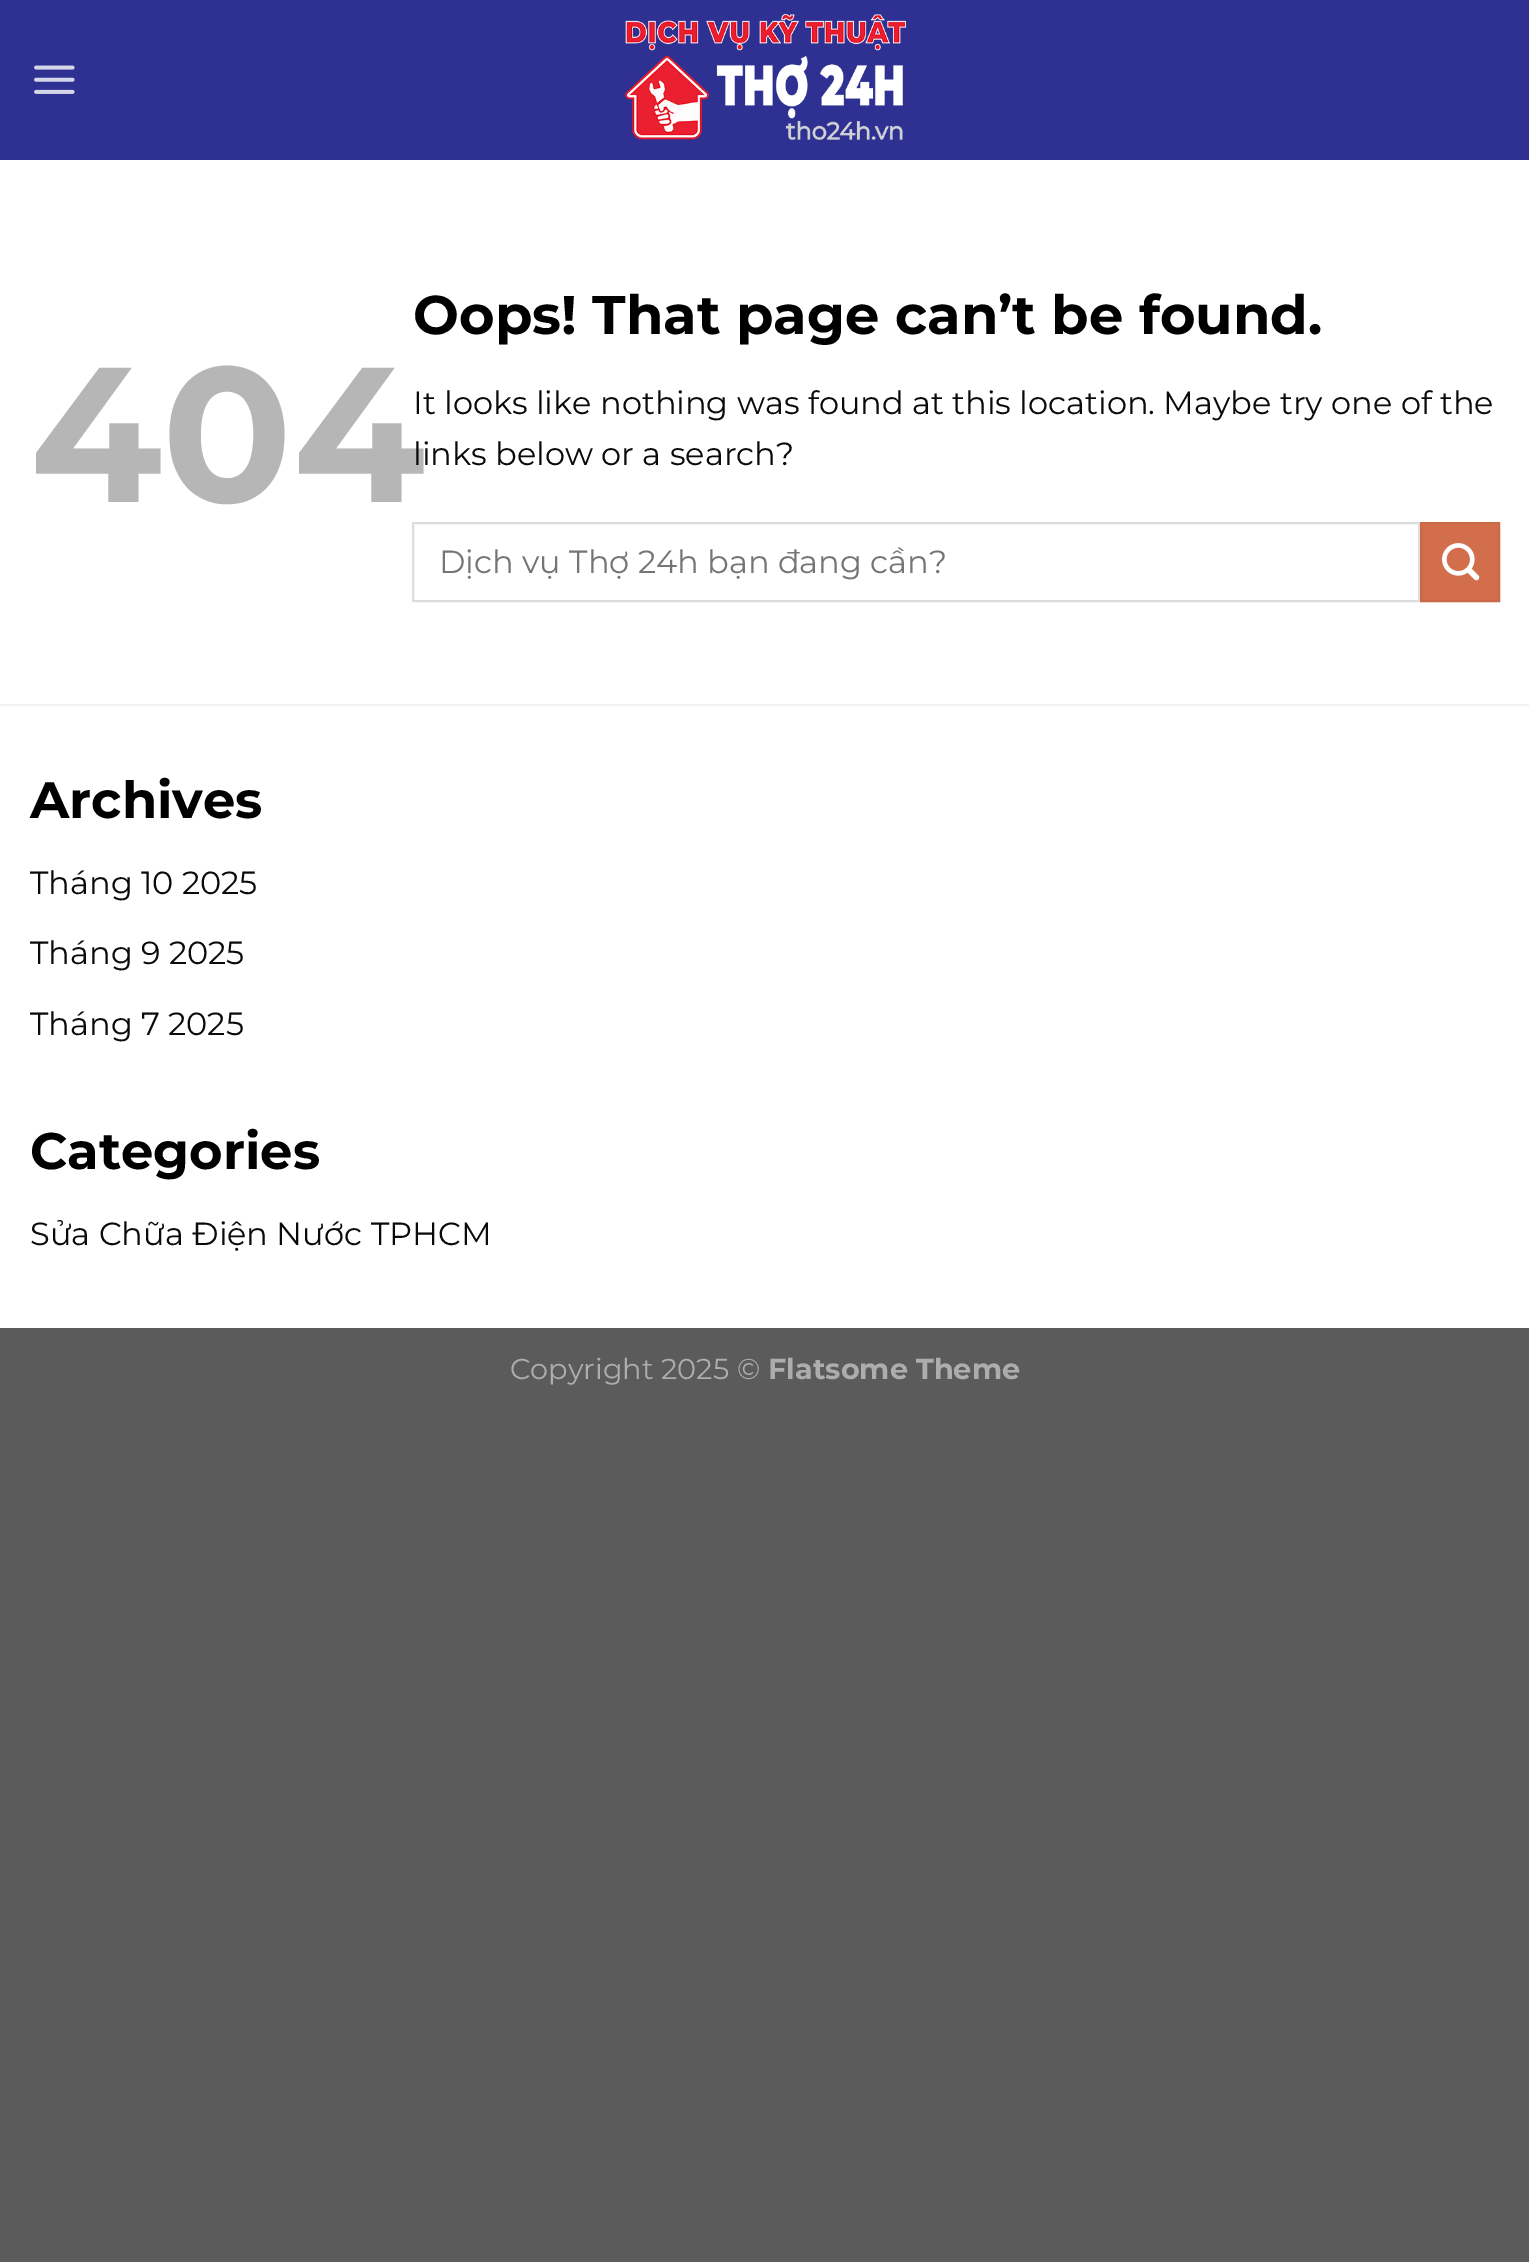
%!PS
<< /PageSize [1529 2262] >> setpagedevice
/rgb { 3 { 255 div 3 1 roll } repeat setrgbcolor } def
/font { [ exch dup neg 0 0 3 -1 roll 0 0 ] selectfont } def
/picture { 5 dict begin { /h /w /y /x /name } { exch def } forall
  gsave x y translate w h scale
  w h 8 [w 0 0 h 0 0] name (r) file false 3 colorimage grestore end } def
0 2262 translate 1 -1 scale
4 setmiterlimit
91 91 91 rgb
0 0 1529 2262 rectfill
255 255 255 rgb
0 160 1529 1168 rectfill
46 49 146 rgb
0 0 1529 160 rectfill
(img/1.rgb) 34 65 41 29 picture
(img/2.rgb) 625 14 281 126 picture
221 221 221 rgb
2 setlinewidth
413 523 1006 78 rectstroke
210 110 75 rgb
1421 523 moveto 1499 523 lineto 1499 601 lineto 1421 601 lineto closepath gsave fill grestore
200 105 71 rgb
stroke
(img/3.rgb) 1442 543 38 38 picture
242 242 242 rgb
0 704 1529 2 rectfill
/Montserrat-Bold 192 font
182 182 182 rgb
30 502 moveto (404) show
/Montserrat-Bold 54.4 font
0 0 0 rgb
413 334 moveto (Oops! That page can’t be found.) show
/Montserrat-Regular 32 font
10 10 10 rgb
413 414 moveto (It looks like nothing was found at this location. Maybe try one of the) show
413 465 moveto (links below or a search?) show
117 117 117 rgb
439 573 moveto (Dịch vụ Thợ 24h bạn đang cần?) show
/Montserrat-Bold 51.25 font
0 0 0 rgb
30 818 moveto (Archives) show
/Montserrat-Regular 32 font
10 10 10 rgb
[
  [(Tháng 10 2025) 30 894]
  [(Tháng 9 2025) 30 964]
  [(Tháng 7 2025) 30 1035]
] { aload pop moveto show } forall
/Montserrat-Bold 51.25 font
0 0 0 rgb
30 1169 moveto (Categories) show
/Montserrat-Regular 32 font
10 10 10 rgb
30 1245 moveto (Sửa Chữa Điện Nước TPHCM) show
/Montserrat-Regular 28.75 font
173 173 173 rgb
510 1379 moveto (Copyright 2025 ©) show
/Montserrat-Bold 28.75 font
768 1379 moveto (Flatsome Theme) show
showpage
